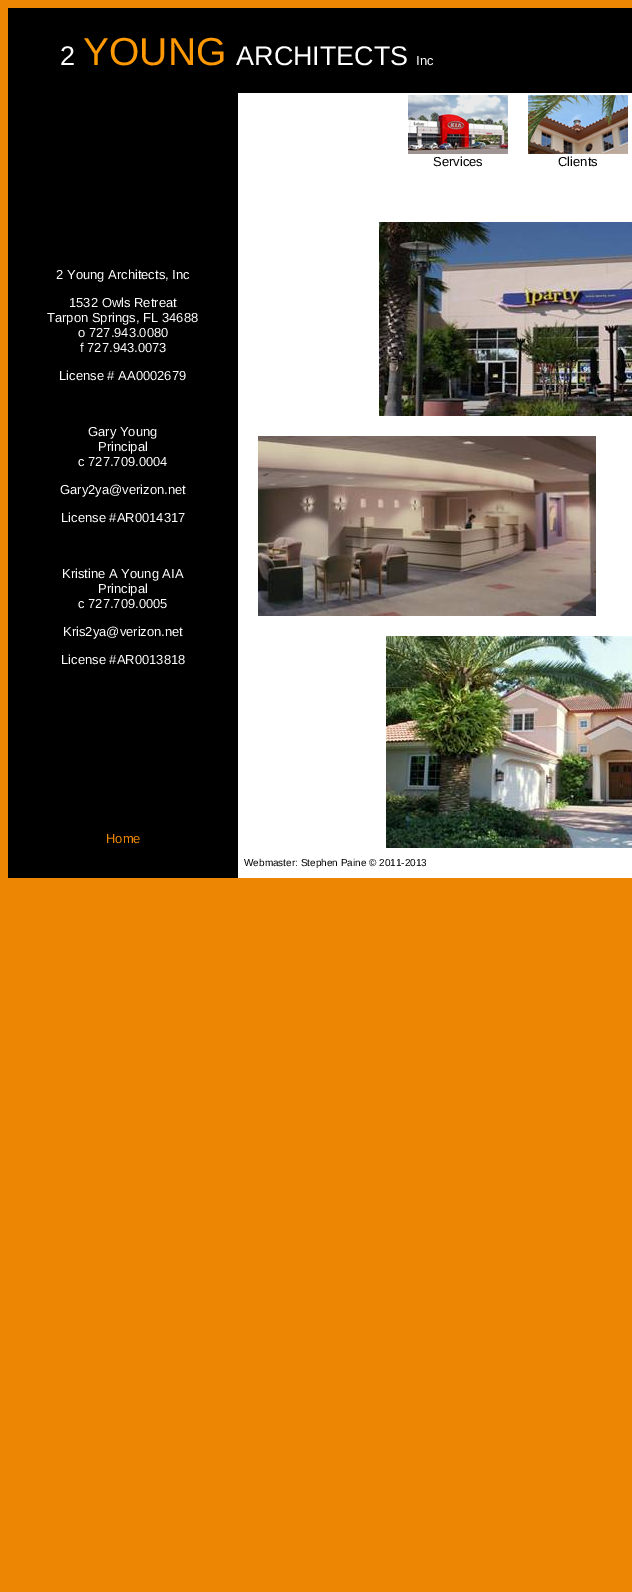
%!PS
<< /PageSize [632 1592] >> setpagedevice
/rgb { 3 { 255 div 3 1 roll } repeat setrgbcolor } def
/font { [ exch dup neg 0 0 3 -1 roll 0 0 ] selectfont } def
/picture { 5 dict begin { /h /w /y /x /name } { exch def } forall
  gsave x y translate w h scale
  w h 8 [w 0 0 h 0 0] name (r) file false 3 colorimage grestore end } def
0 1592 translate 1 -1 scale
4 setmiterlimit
237 135 3 rgb
0 0 632 1592 rectfill
255 255 255 rgb
238 93 394 785 rectfill
0 0 0 rgb
238 8 394 85 rectfill
(img/1.rgb) 408 95 100 59 picture
(img/2.rgb) 528 95 100 59 picture
8 8 230 870 rectfill
(img/3.rgb) 379 222 253 194 picture
(img/4.rgb) 258 436 338 180 picture
(img/5.rgb) 386 636 246 212 picture
/LiberationSans-Regular 27 font
255 255 255 rgb
60 65 moveto (2) show
/LiberationSans-Regular 39 font
255 153 3 rgb
83 65 moveto (YOUNG) show
/LiberationSans-Regular 27 font
255 255 255 rgb
236 65 moveto (ARCHITECTS) show
/LiberationSans-Regular 13 font
416 65 moveto (Inc) show
0 0 0 rgb
433 166 moveto (Services) show
558 166 moveto (Clients) show
255 255 255 rgb
[
  [(2 Young Architects, Inc) 56 279]
  [(1532 Owls Retreat) 69 307]
  [(Tarpon Springs, FL 34688) 47 322]
  [(o 727.943.0080) 78 337]
  [(f 727.943.0073) 80 352]
  [(License # AA0002679) 59 380]
  [(Gary Young) 88 436]
  [(Principal) 98 451]
  [(c 727.709.0004) 78 466]
  [(Gary2ya@verizon.net) 60 494]
  [(License #AR0014317) 61 522]
  [(Kristine A Young AIA) 62 578]
  [(Principal) 98 593]
  [(c 727.709.0005) 78 608]
  [(Kris2ya@verizon.net) 63 636]
  [(License #AR0013818) 61 664]
] { aload pop moveto show } forall
237 135 3 rgb
106 843 moveto (Home) show
/LiberationSans-Regular 10 font
0 0 0 rgb
244 866 moveto (Webmaster: Stephen Paine © 2011-2013) show
showpage
